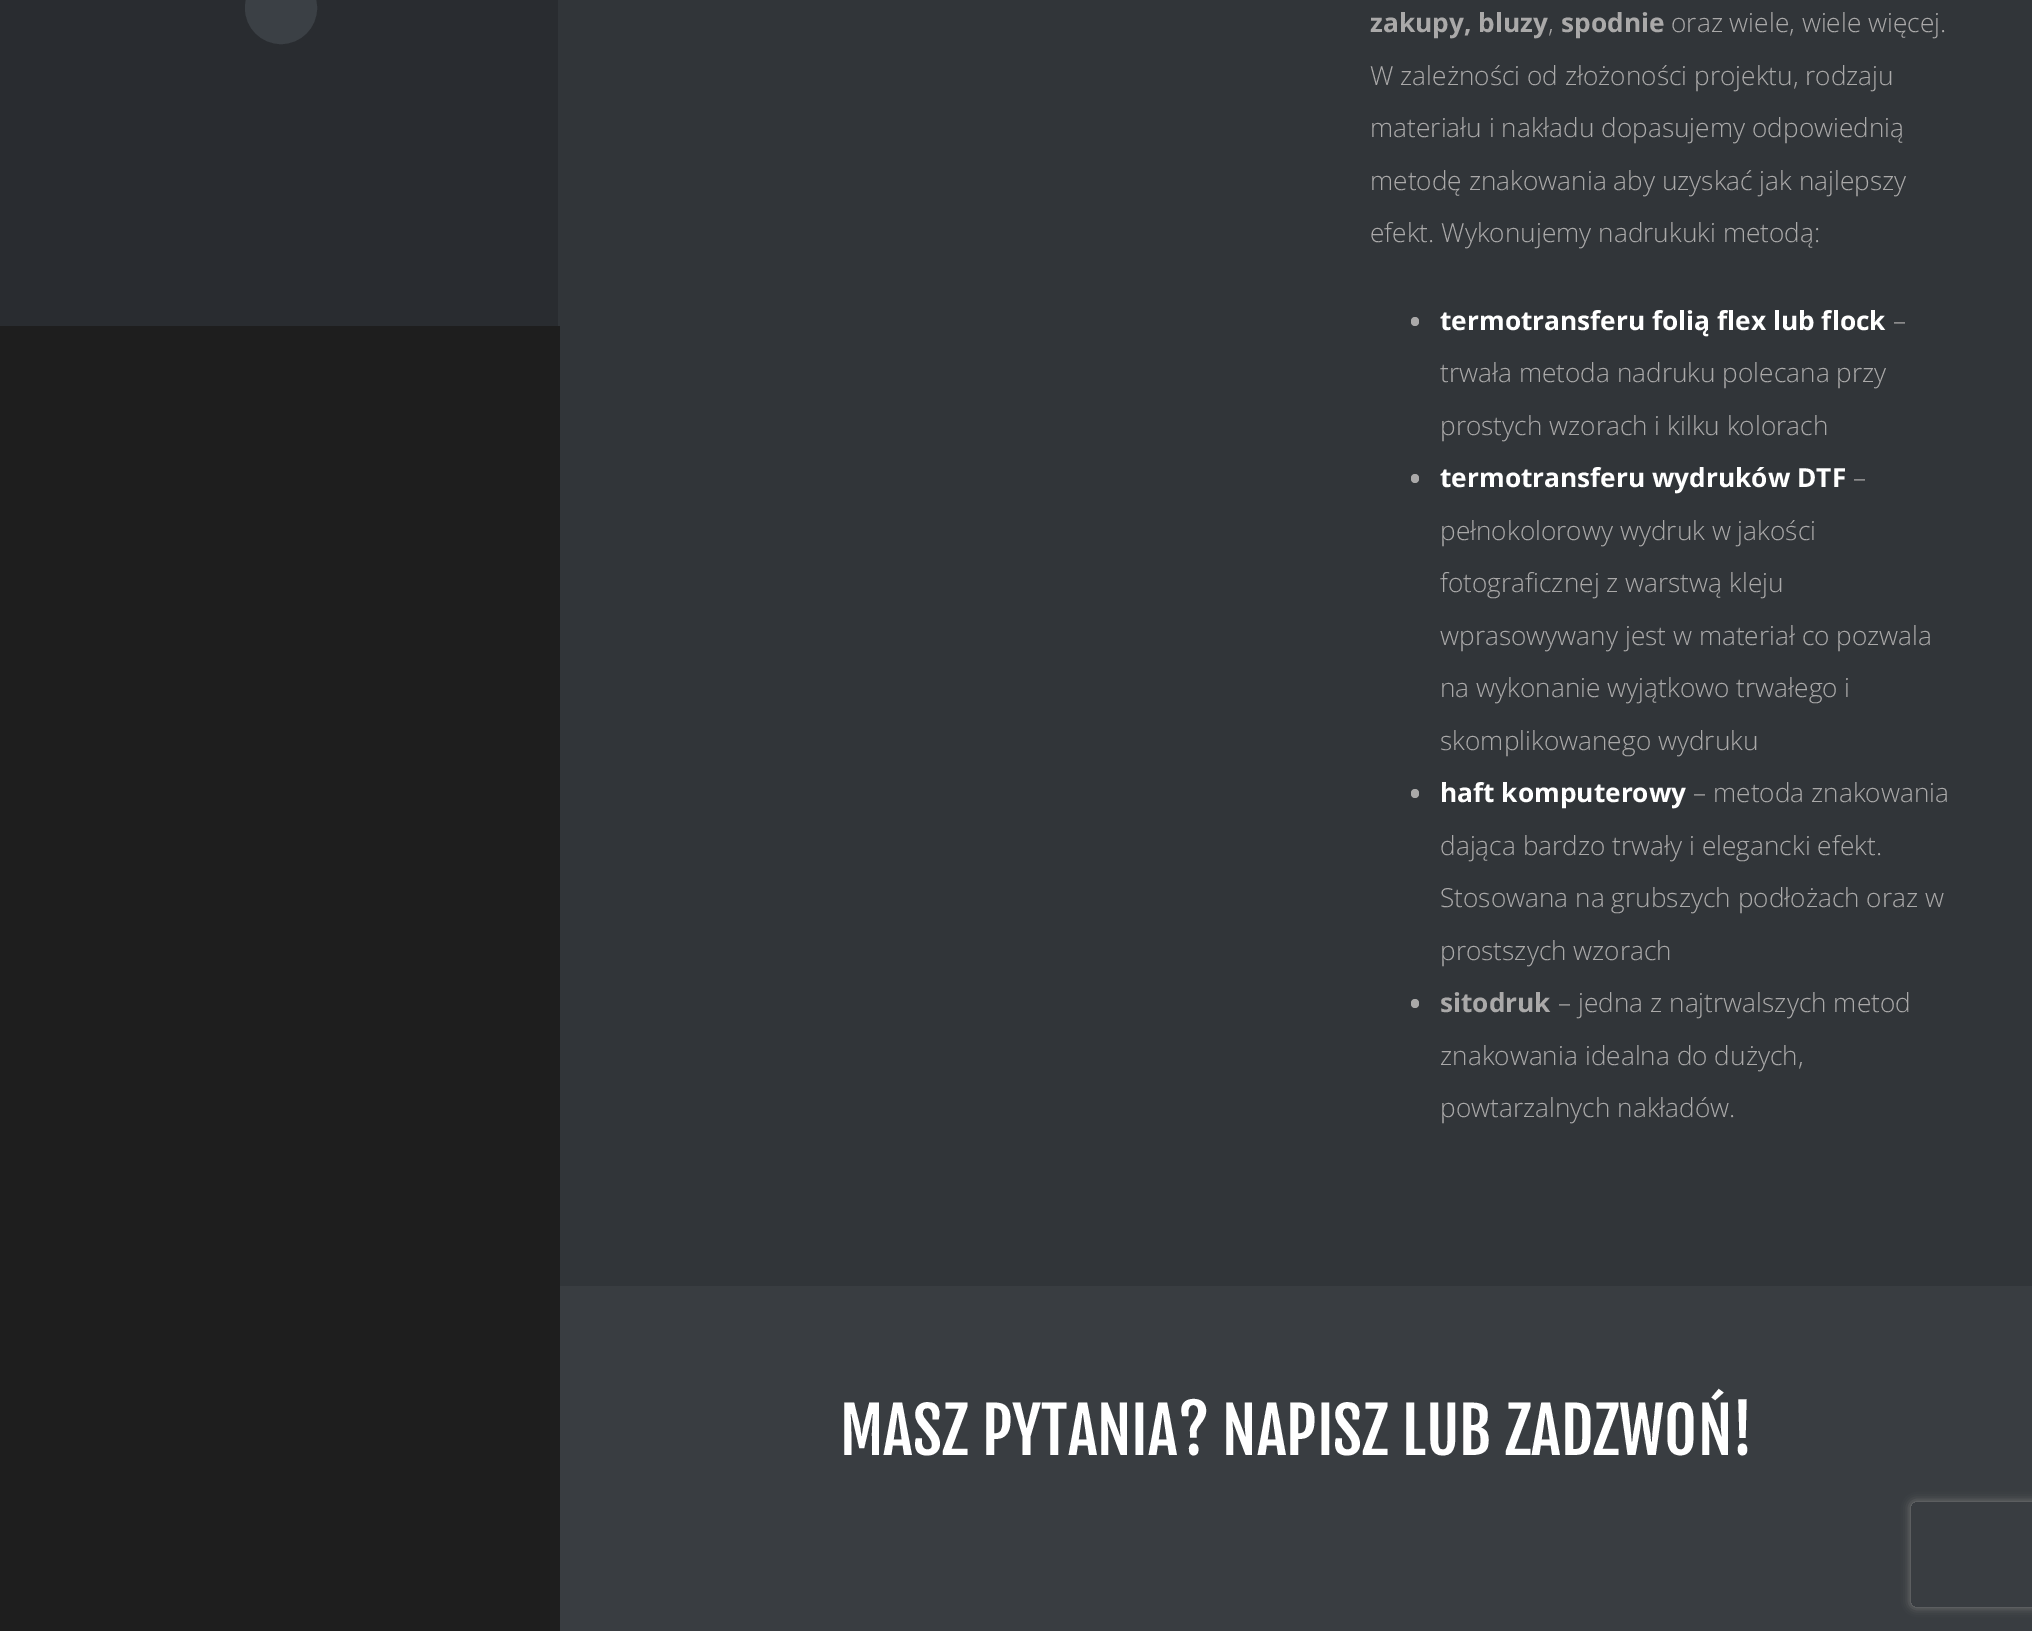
%!PS
<< /PageSize [2032 1631] /PageUsesTransparency true >> setpagedevice
/rgb { 3 { 255 div 3 1 roll } repeat setrgbcolor } def
/font { [ exch dup neg 0 0 3 -1 roll 0 0 ] selectfont } def
/alpha { dup .setfillconstantalpha .setstrokeconstantalpha } def
/circle { newpath 0 360 arc closepath } def
/roundrect { 5 dict begin { /r /h /w /y /x } { exch def } forall
  x r add y moveto x w add y 2 copy h add r arct x w add y h add x 1 index r arct
  x y h add x y r arct x y 2 copy exch w add exch r arct closepath end } def
/shadow { 12 dict begin { /a /b /q /h /w /y /x } { exch def } forall gsave /was 0 def
  9 -2 -9 { dup b mul 4 div /e exch def 1 sub .425 mul 2.718 exch exp 1 add a .99 .min exch div /now exch def
    1 1 now sub 1 was sub div sub alpha /was now def
    w h .min e 2 mul add 0 gt { x e sub y e sub w e 2 mul add h e 2 mul add
      q e add b .6 mul add w h .min 2 div e add .min 0 .max roundrect fill } if } for grestore end } def
0 .pushpdf14devicefilter
0 1631 translate 1 -1 scale
4 setmiterlimit
30 30 30 rgb
0 0 2032 1631 rectfill
49 53 57 rgb
560 0 1472 1286 rectfill
41 44 48 rgb
0 0 558 326 rectfill
59 64 69 rgb
281 8 35 circle gsave fill grestore
2 setlinewidth
stroke
49 53 57 rgb
558 0 2 326 rectfill
170 169 169 rgb
1411 317 8 9 4 roundrect fill
1411 474 8 9 4 roundrect fill
1411 789 8 9 4 roundrect fill
1411 999 8 9 4 roundrect fill
57 61 65 rgb
560 1286 1472 345 rectfill
gsave
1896 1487 moveto 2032 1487 lineto 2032 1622 lineto 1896 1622 lineto closepath 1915 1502 moveto 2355 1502 lineto 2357 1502 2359 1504 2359 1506 curveto 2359 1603 lineto 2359 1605 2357 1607 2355 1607 curveto 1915 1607 lineto 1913 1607 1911 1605 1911 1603 curveto 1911 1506 lineto 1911 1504 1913 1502 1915 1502 curveto closepath eoclip newpath
128 128 128 rgb
1911 1502 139 105 4 4.5 1 shadow
grestore
/OpenSans-Bold 26.25 font
170 169 169 rgb
1370 32 moveto (zakupy, bluzy) show
/OpenSans-Light 26.25 font
1548 32 moveto (,) show
/OpenSans-Bold 26.25 font
1561 32 moveto (spodnie) show
/OpenSans-Light 26.25 font
[
  [(oraz wiele, wiele więcej.) 1671 32]
  [(W zależności od złożoności projektu, rodzaju) 1370 85]
  [(materiału i nakładu dopasujemy odpowiednią) 1370 137]
  [(metodę znakowania aby uzyskać jak najlepszy) 1370 190]
  [(efekt. Wykonujemy nadrukuki metodą:) 1370 242]
] { aload pop moveto show } forall
/OpenSans-Bold 26.25 font
255 255 255 rgb
1440 330 moveto (termotransferu folią flex lub flock) show
/OpenSans-Light 26.25 font
170 169 169 rgb
[
  [(–) 1893 330]
  [(trwała metoda nadruku polecana przy) 1440 382]
  [(prostych wzorach i kilku kolorach) 1440 435]
] { aload pop moveto show } forall
/OpenSans-Bold 26.25 font
255 255 255 rgb
1440 487 moveto (termotransferu wydruków DTF) show
/OpenSans-Light 26.25 font
170 169 169 rgb
[
  [(–) 1853 487]
  [(pełnokolorowy wydruk w jakości) 1440 540]
  [(fotograficznej z warstwą kleju) 1440 592]
  [(wprasowywany jest w materiał co pozwala) 1440 645]
  [(na wykonanie wyjątkowo trwałego i) 1440 697]
  [(skomplikowanego wydruku) 1440 750]
] { aload pop moveto show } forall
/OpenSans-Bold 26.25 font
255 255 255 rgb
1440 802 moveto (haft komputerowy) show
/OpenSans-Light 26.25 font
170 169 169 rgb
[
  [(– metoda znakowania) 1693 802]
  [(dająca bardzo trwały i elegancki efekt.) 1440 855]
  [(Stosowana na grubszych podłożach oraz w) 1440 907]
  [(prostszych wzorach) 1440 960]
] { aload pop moveto show } forall
/OpenSans-Bold 26.25 font
1440 1012 moveto (sitodruk) show
/OpenSans-Light 26.25 font
[
  [(– jedna z najtrwalszych metod) 1558 1012]
  [(znakowania idealna do dużych,) 1440 1065]
  [(powtarzalnych nakładów.) 1440 1117]
] { aload pop moveto show } forall
/FjallaOne-Regular 63 font
255 255 255 rgb
840 1455 moveto (MASZ PYTANIA? NAPISZ LUB ZADZWOŃ!) show
.poppdf14devicefilter showpage
